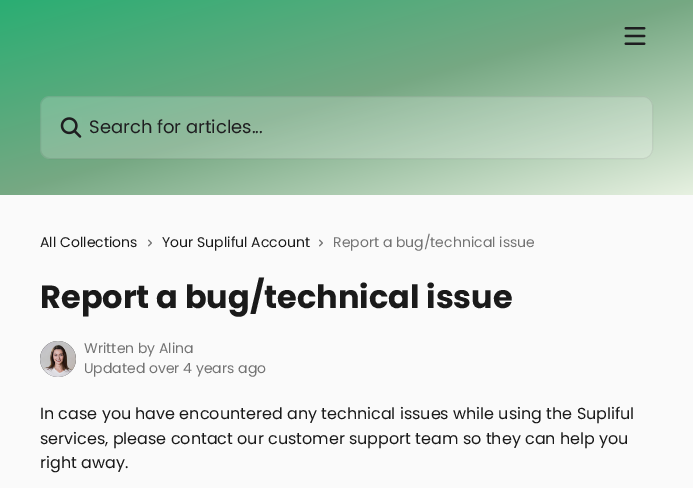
%!PS
<< /PageSize [693 488] /PageUsesTransparency true >> setpagedevice
/rgb { 3 { 255 div 3 1 roll } repeat setrgbcolor } def
/font { [ exch dup neg 0 0 3 -1 roll 0 0 ] selectfont } def
/alpha { dup .setfillconstantalpha .setstrokeconstantalpha } def
/roundrect { 5 dict begin { /r /h /w /y /x } { exch def } forall
  x r add y moveto x w add y 2 copy h add r arct x w add y h add x 1 index r arct
  x y h add x y r arct x y 2 copy exch w add exch r arct closepath end } def
/picture { 5 dict begin { /h /w /y /x /name } { exch def } forall
  gsave x y translate w h scale
  w h 8 [w 0 0 h 0 0] name (r) file false 3 colorimage grestore end } def
0 .pushpdf14devicefilter
0 488 translate 1 -1 scale
4 setmiterlimit
250 250 250 rgb
0 0 693 488 rectfill
gsave 0 0 moveto 693 0 lineto 693 195 lineto 0 195 lineto closepath clip newpath
<< /ShadingType 2 /ColorSpace /DeviceRGB /Coords [296 -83 397 278] /Extend [true true] /Function << /FunctionType 3 /Domain [0 1] /Functions [<< /FunctionType 2 /Domain [0 1] /C0 [0.165 0.682 0.451] /C1 [0.463 0.659 0.514] /N 1 >> << /FunctionType 2 /Domain [0 1] /C0 [0.463 0.659 0.514] /C1 [0.906 0.945 0.882] /N 1 >>] /Bounds [0.5] /Encode [0 1 0 1] >> >> shfill grestore
(img/1.rgb) 624 27 22 18 picture
0.2 alpha
255 255 255 rgb
40 96 613 63 10 roundrect fill
0.08 alpha
0 0 0 rgb
40.5 96.5 612 62 9.5 roundrect stroke
1 alpha
(img/2.rgb) 60 117 22 21 picture
(img/3.rgb) 148 239 4 8 picture
(img/3.rgb) 319 239 4 8 picture
(img/4.rgb) 40 341 36 36 picture
/Poppins-Regular 18 font
30 30 32 rgb
89 133 moveto (Search for articles...) show
/Poppins-Regular 14 font
26 26 26 rgb
40 247 moveto (All Collections) show
162 247 moveto (Your Supliful Account) show
115 115 115 rgb
333 247 moveto (Report a bug/technical issue) show
/Poppins-Bold 32 font
26 26 26 rgb
40 308 moveto (Report a bug/technical issue) show
/Poppins-Regular 14 font
115 115 115 rgb
84 353 moveto (Written by Alina) show
84 373 moveto (Updated over 4 years ago) show
/Poppins-Regular 16 font
26 26 26 rgb
[
  [(In case you have encountered any technical issues while using the Supliful) 40 419]
  [(services, please contact our customer support team so they can help you) 40 444]
  [(right away.) 40 468]
] { aload pop moveto show } forall
.poppdf14devicefilter showpage
